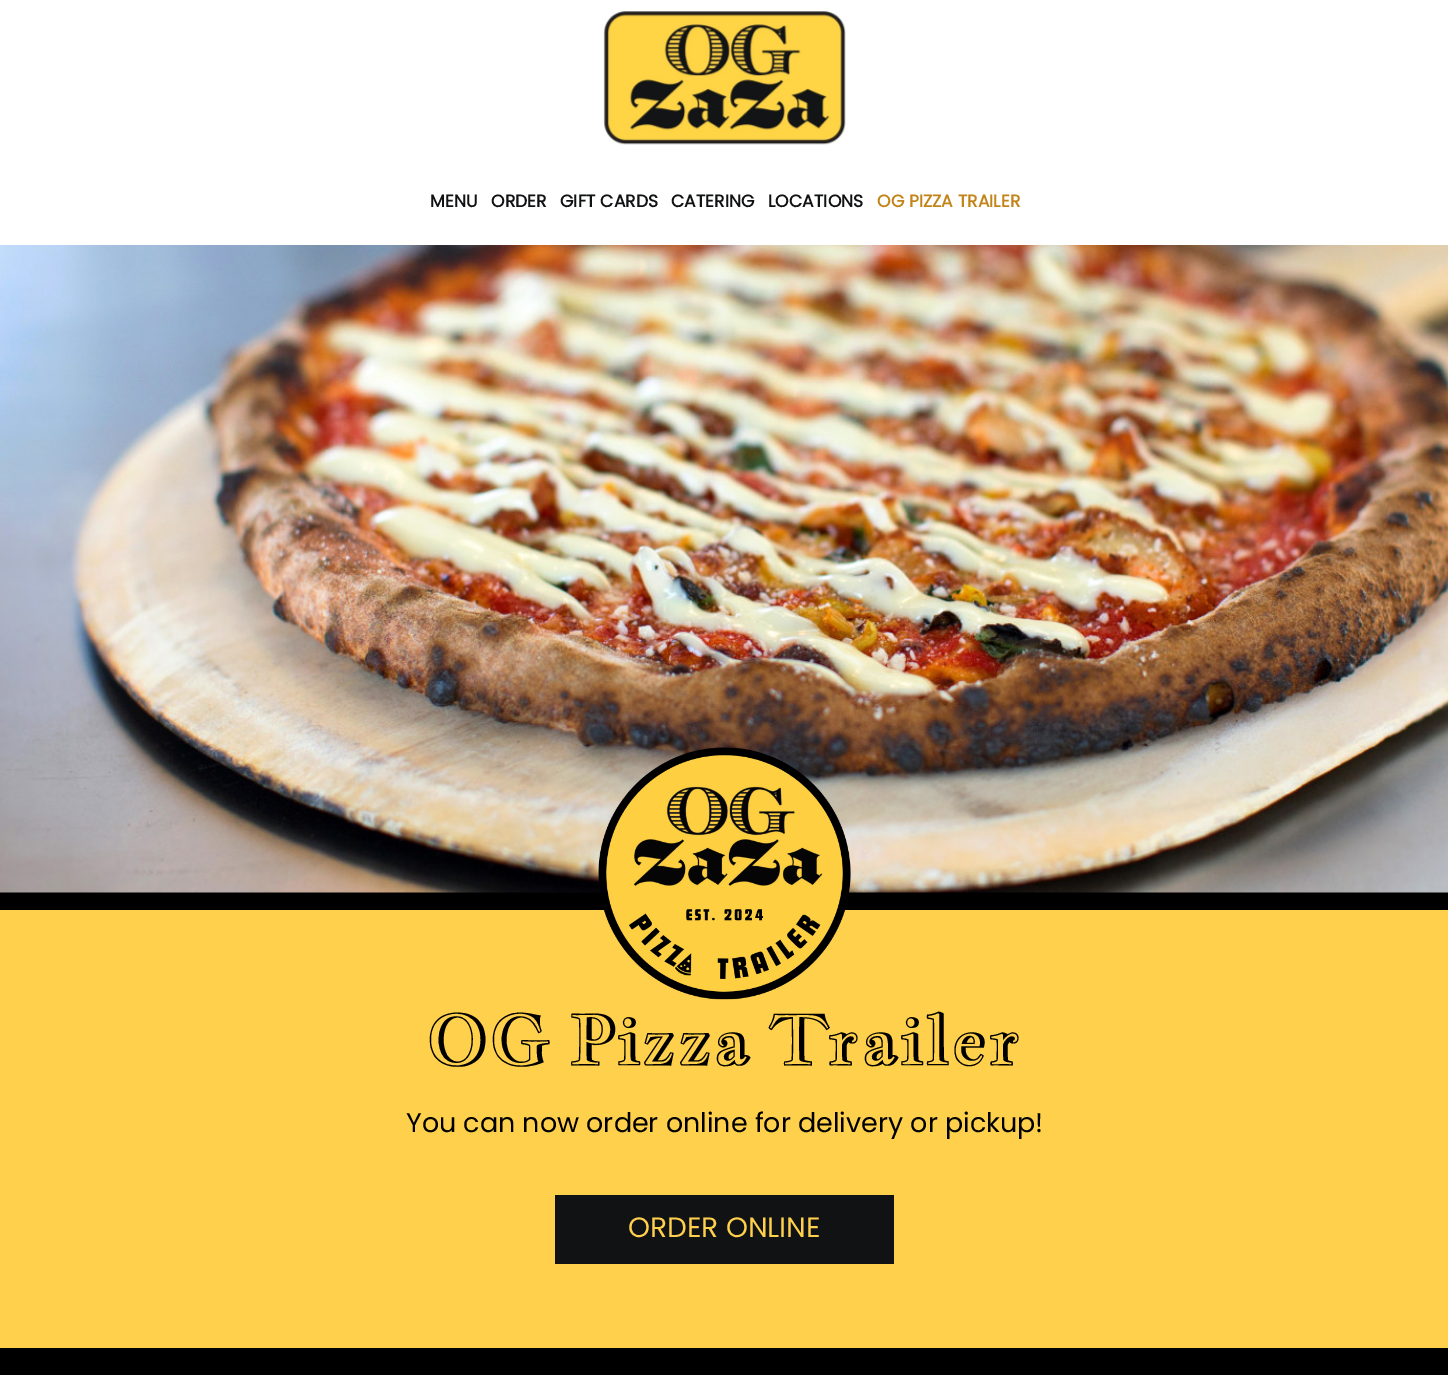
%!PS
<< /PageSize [1448 1375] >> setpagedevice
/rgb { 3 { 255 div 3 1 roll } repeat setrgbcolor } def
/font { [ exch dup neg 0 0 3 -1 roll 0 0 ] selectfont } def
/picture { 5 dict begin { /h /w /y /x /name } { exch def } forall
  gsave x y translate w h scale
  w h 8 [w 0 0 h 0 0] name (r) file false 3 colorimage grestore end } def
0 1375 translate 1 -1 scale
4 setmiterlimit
0 0 0 rgb
0 0 1448 1375 rectfill
255 255 255 rgb
0 0 1448 245 rectfill
(img/1.rgb) 603 11 243 134 picture
(img/2.rgb) 0 245 1448 648 picture
255 208 76 rgb
0 910 1448 438 rectfill
(img/3.rgb) 598 747 253 253 picture
17 18 20 rgb
555 1195 339 69 rectfill
/Poppins-Bold 17.25 font
[
  [(MENU) 430 207]
  [(ORDER) 491 207]
  [(GIFT CARDS) 560 207]
  [(CATERING) 671 207]
  [(LOCATIONS) 768 207]
] { aload pop moveto show } forall
195 132 26 rgb
877 207 moveto (OG PIZZA TRAILER) show
/JacquesFrancoisShadow-Regular 68.5 font
0 0 0 rgb
426 1064 moveto (OG Pizza Trailer) show
/Poppins-Regular 26.95 font
406 1132 moveto (You can now order online for delivery or pickup!) show
/Poppins-Regular 28 font
255 208 76 rgb
628 1237 moveto (ORDER ONLINE) show
showpage
